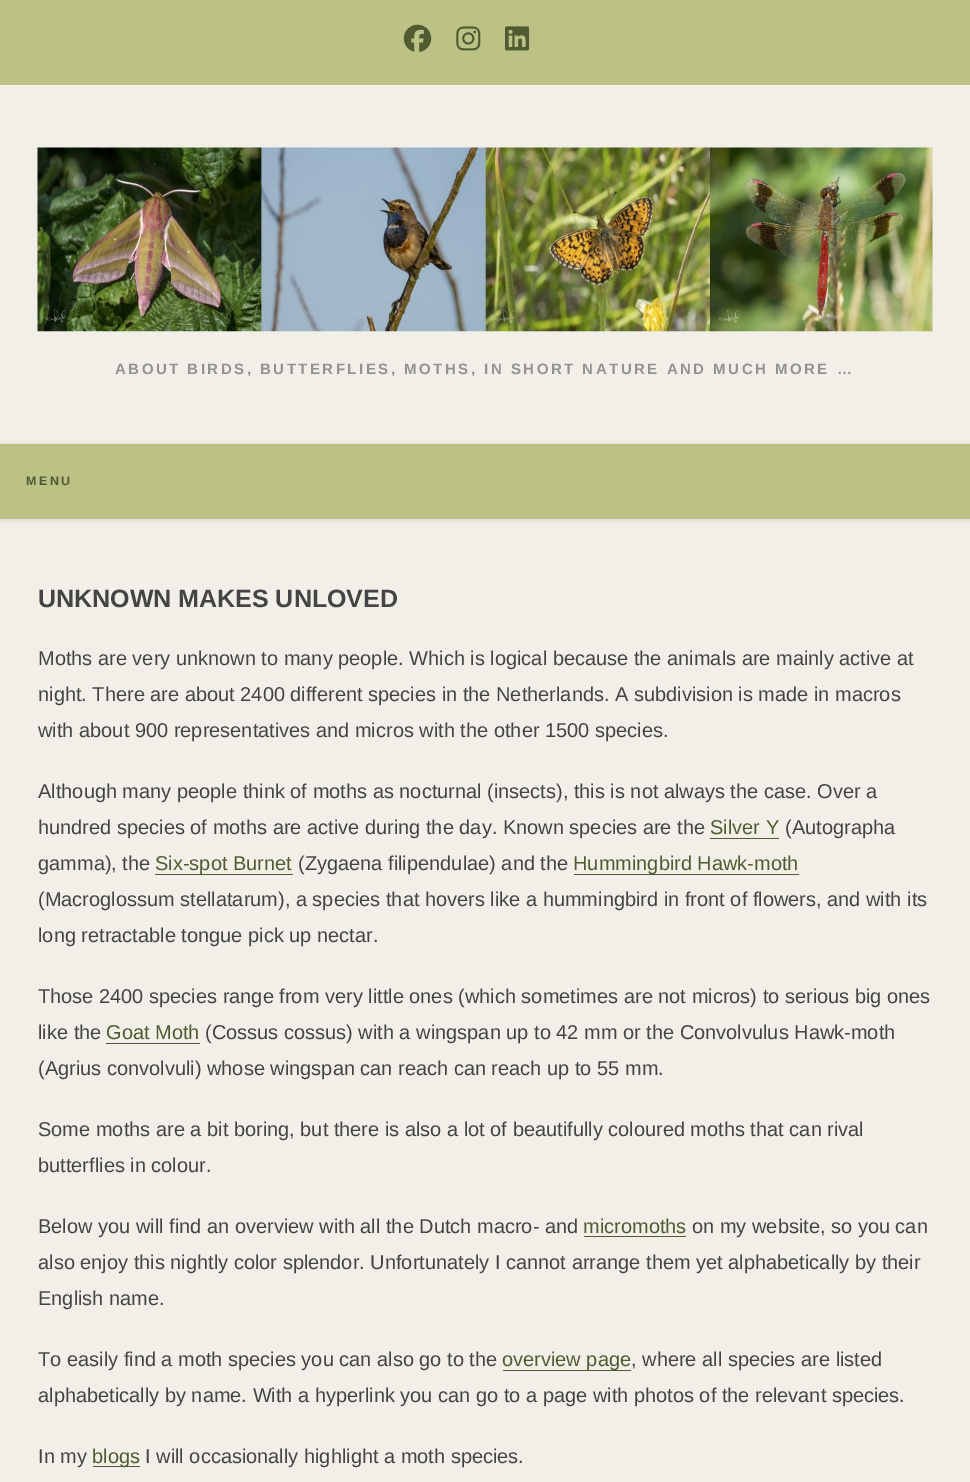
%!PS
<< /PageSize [970 1482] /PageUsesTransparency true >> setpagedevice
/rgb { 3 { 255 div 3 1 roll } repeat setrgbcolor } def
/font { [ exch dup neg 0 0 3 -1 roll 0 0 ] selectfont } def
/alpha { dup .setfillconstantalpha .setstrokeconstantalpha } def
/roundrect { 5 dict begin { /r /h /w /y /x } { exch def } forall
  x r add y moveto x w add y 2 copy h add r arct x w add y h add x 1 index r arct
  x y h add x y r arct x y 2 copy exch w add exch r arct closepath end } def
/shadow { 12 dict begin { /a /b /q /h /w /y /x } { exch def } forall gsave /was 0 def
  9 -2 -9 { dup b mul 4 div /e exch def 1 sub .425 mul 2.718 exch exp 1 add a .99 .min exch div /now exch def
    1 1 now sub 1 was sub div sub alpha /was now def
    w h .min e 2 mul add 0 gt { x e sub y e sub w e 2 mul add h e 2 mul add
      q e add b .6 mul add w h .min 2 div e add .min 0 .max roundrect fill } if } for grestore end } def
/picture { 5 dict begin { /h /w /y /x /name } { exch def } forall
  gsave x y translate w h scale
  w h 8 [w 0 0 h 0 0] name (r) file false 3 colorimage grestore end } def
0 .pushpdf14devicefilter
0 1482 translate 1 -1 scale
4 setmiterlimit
241 239 232 rgb
0 0 970 1482 rectfill
188 194 133 rgb
0 0 970 85 rectfill
(img/1.rgb) 403 24 29 28 picture
(img/2.rgb) 456 26 25 25 picture
(img/3.rgb) 505 26 25 25 picture
(img/4.rgb) 37 147 896 185 picture
0 0 0 rgb
0 445 970 75 0 3 0.1 shadow
[
  [0 444 970 75 188 194 133]
  [710 838 69 1 80 91 49]
  [155 874 138 1 80 91 49]
  [574 874 225 1 80 91 49]
  [106 1043 94 1 80 91 49]
  [584 1236 102 1 80 91 49]
  [503 1370 128 1 80 91 49]
  [93 1466 47 1 80 91 49]
] { aload pop rgb rectfill } forall
/LiberationSans-Bold 15 font
146 146 146 rgb
115 374 moveto 2.5 0 (ABOUT BIRDS, BUTTERFLIES, MOTHS, IN SHORT NATURE AND MUCH MORE …) ashow
/LiberationSans-Bold 12.5 font
80 91 49 rgb
26 485 moveto 2.5 0 (MENU) ashow
/LiberationSans-Bold 25 font
68 68 68 rgb
38 607 moveto (UNKNOWN MAKES UNLOVED) show
/LiberationSans-Regular 20 font
[
  [(Moths are very unknown to many people. Which is logical because the animals are mainly active at) 38 665]
  [(night. There are about 2400 different species in the Netherlands. A subdivision is made in macros) 38 701]
  [(with about 900 representatives and micros with the other 1500 species.) 38 737]
  [(Although many people think of moths as nocturnal \(insects\), this is not always the case. Over a) 38 798]
  [(hundred species of moths are active during the day. Known species are the) 38 834]
] { aload pop moveto show } forall
80 91 49 rgb
710 834 moveto (Silver Y) show
68 68 68 rgb
785 834 moveto (\(Autographa) show
38 870 moveto (gamma\), the) show
80 91 49 rgb
155 870 moveto (Six-spot Burnet) show
68 68 68 rgb
298 870 moveto (\(Zygaena filipendulae\) and the) show
80 91 49 rgb
573 870 moveto (Hummingbird Hawk-moth) show
68 68 68 rgb
[
  [(\(Macroglossum stellatarum\), a species that hovers like a hummingbird in front of flowers, and with its) 38 906]
  [(long retractable tongue pick up nectar.) 38 942]
  [(Those 2400 species range from very little ones \(which sometimes are not micros\) to serious big ones) 38 1003]
  [(like the) 38 1039]
] { aload pop moveto show } forall
80 91 49 rgb
106 1039 moveto (Goat Moth) show
68 68 68 rgb
[
  [(\(Cossus cossus\) with a wingspan up to 42 mm or the Convolvulus Hawk-moth) 205 1039]
  [(\(Agrius convolvuli\) whose wingspan can reach can reach up to 55 mm.) 38 1075]
  [(Some moths are a bit boring, but there is also a lot of beautifully coloured moths that can rival) 38 1136]
  [(butterflies in colour.) 38 1172]
  [(Below you will find an overview with all the Dutch macro- and) 38 1233]
] { aload pop moveto show } forall
80 91 49 rgb
583 1233 moveto (micromoths) show
68 68 68 rgb
[
  [(on my website, so you can) 692 1233]
  [(also enjoy this nightly color splendor. Unfortunately I cannot arrange them yet alphabetically by their) 38 1269]
  [(English name.) 38 1305]
  [(To easily find a moth species you can also go to the) 38 1366]
] { aload pop moveto show } forall
80 91 49 rgb
502 1366 moveto (overview page) show
68 68 68 rgb
[
  [(, where all species are listed) 631 1366]
  [(alphabetically by name. With a hyperlink you can go to a page with photos of the relevant species.) 38 1402]
  [(In my) 38 1463]
] { aload pop moveto show } forall
80 91 49 rgb
92 1463 moveto (blogs) show
68 68 68 rgb
145 1463 moveto (I will occasionally highlight a moth species.) show
.poppdf14devicefilter showpage
